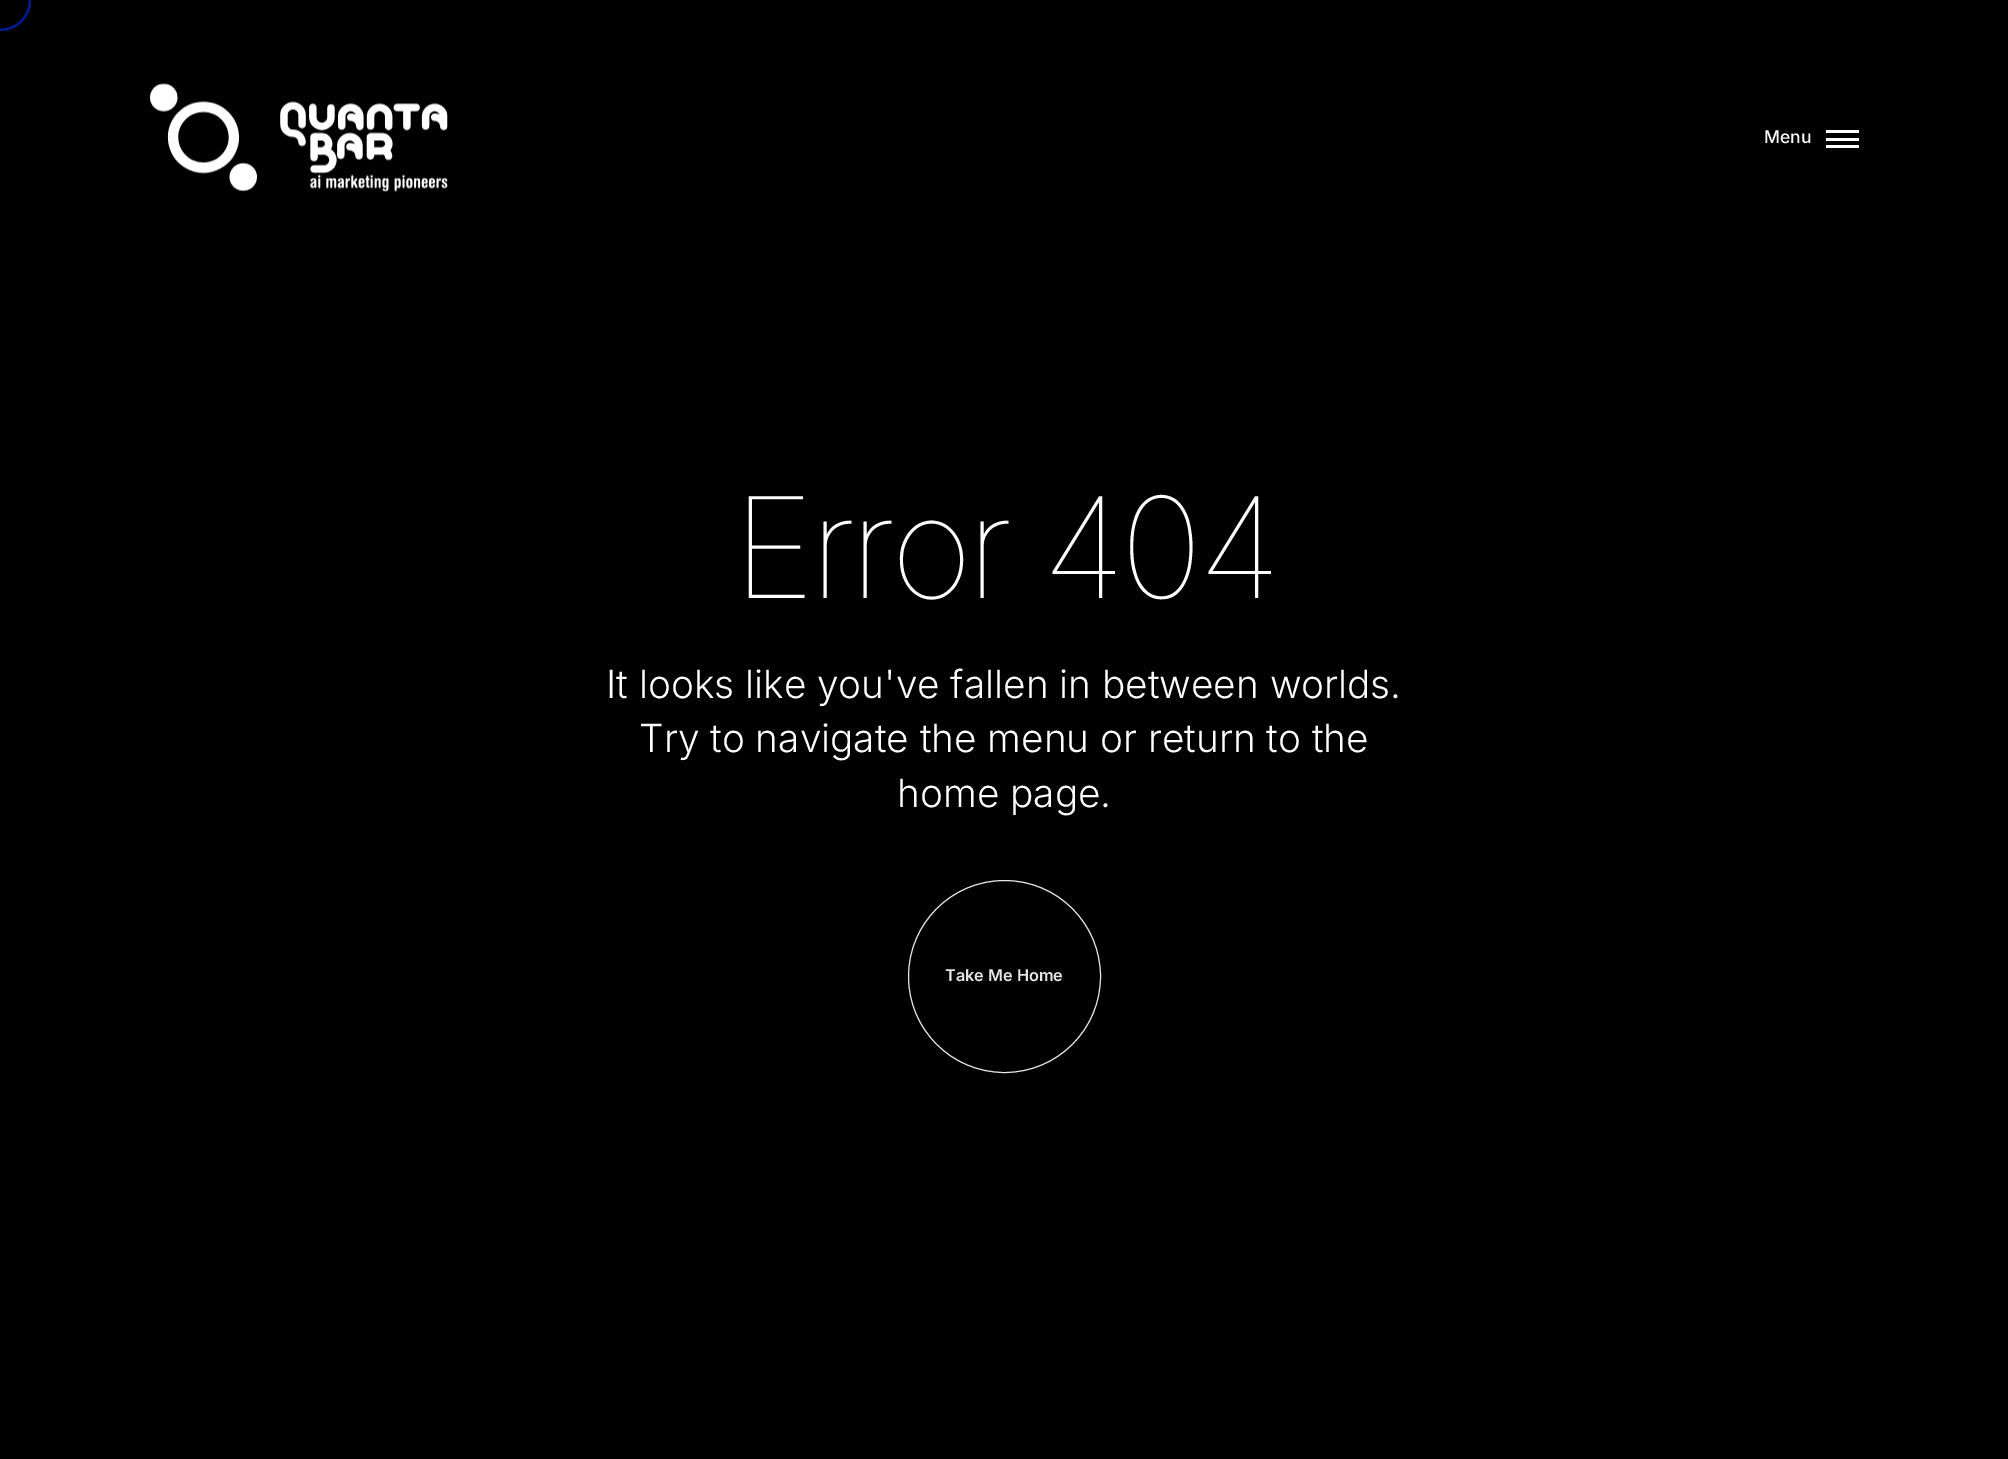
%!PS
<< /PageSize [2008 1459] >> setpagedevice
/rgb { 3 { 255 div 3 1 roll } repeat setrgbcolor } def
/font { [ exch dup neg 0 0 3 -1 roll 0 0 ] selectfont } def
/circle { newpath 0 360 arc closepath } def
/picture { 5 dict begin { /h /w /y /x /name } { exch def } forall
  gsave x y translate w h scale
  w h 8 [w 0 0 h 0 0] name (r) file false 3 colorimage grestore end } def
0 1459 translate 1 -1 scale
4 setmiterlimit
0 0 0 rgb
0 0 2008 1459 rectfill
(img/1.rgb) 0 0 31 31 picture
(img/2.rgb) 150 83 298 109 picture
[
  [1826 130 33 3 255 255 255]
  [1826 138 33 3 255 255 255]
  [1826 145 33 3 255 255 255]
] { aload pop rgb rectfill } forall
230 230 230 rgb
1004.5 976.5 96 circle stroke
/Inter-Medium 17.5 font
255 255 255 rgb
1764 143 moveto (Menu) show
/Inter-Thin 140 font
733 598 moveto -5 0 (Error 404) ashow
/Inter-Light 38.75 font
[
  [(It looks like you've fallen in between worlds.) 606 698]
  [(Try to navigate the menu or return to the) 639 752]
  [(home page.) 897 807]
] { aload pop moveto show } forall
/Inter-SemiBold 16.25 font
230 230 230 rgb
945 981 moveto (Take Me Home) show
showpage
